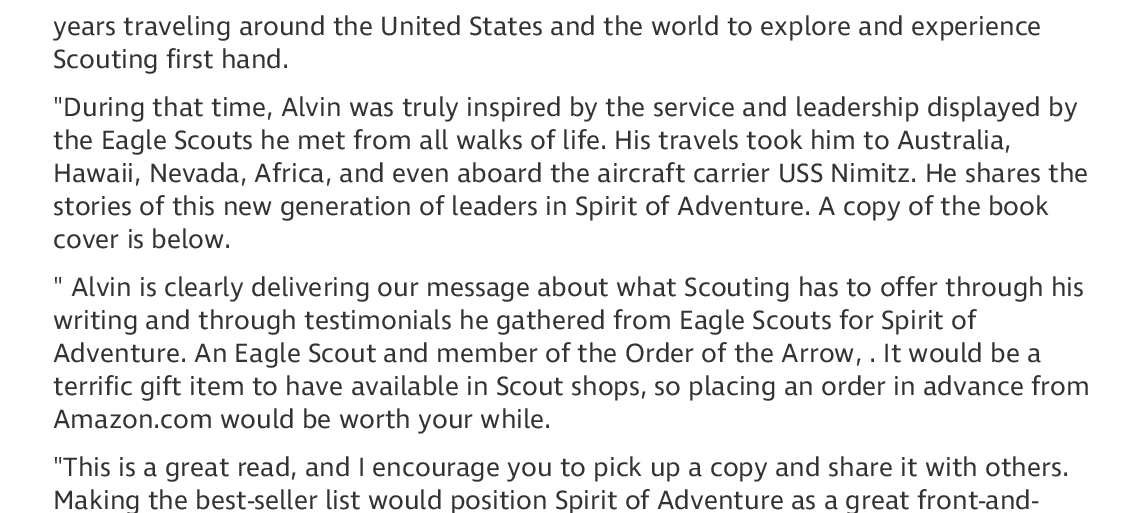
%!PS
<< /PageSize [1146 513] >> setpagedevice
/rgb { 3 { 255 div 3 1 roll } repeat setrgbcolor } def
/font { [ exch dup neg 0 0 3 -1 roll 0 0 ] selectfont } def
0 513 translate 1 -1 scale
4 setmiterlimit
255 255 255 rgb
0 0 1146 513 rectfill
/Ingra-Regular 27 font
51 51 51 rgb
[
  [(years traveling around the United States and the world to explore and experience) 53 35]
  [(Scouting first hand.) 53 68]
  [("During that time, Alvin was truly inspired by the service and leadership displayed by) 53 116]
  [(the Eagle Scouts he met from all walks of life. His travels took him to Australia,) 53 149]
  [(Hawaii, Nevada, Africa, and even aboard the aircraft carrier USS Nimitz. He shares the) 53 182]
  [(stories of this new generation of leaders in Spirit of Adventure. A copy of the book) 53 215]
  [(cover is below.) 53 248]
  [(" Alvin is clearly delivering our message about what Scouting has to offer through his) 53 296]
  [(writing and through testimonials he gathered from Eagle Scouts for Spirit of) 53 329]
  [(Adventure. An Eagle Scout and member of the Order of the Arrow, . It would be a) 53 362]
  [(terrific gift item to have available in Scout shops, so placing an order in advance from) 53 395]
  [(Amazon.com would be worth your while.) 53 428]
  [("This is a great read, and I encourage you to pick up a copy and share it with others.) 53 476]
  [(Making the best-seller list would position Spirit of Adventure as a great front-and-) 53 509]
] { aload pop moveto show } forall
showpage
